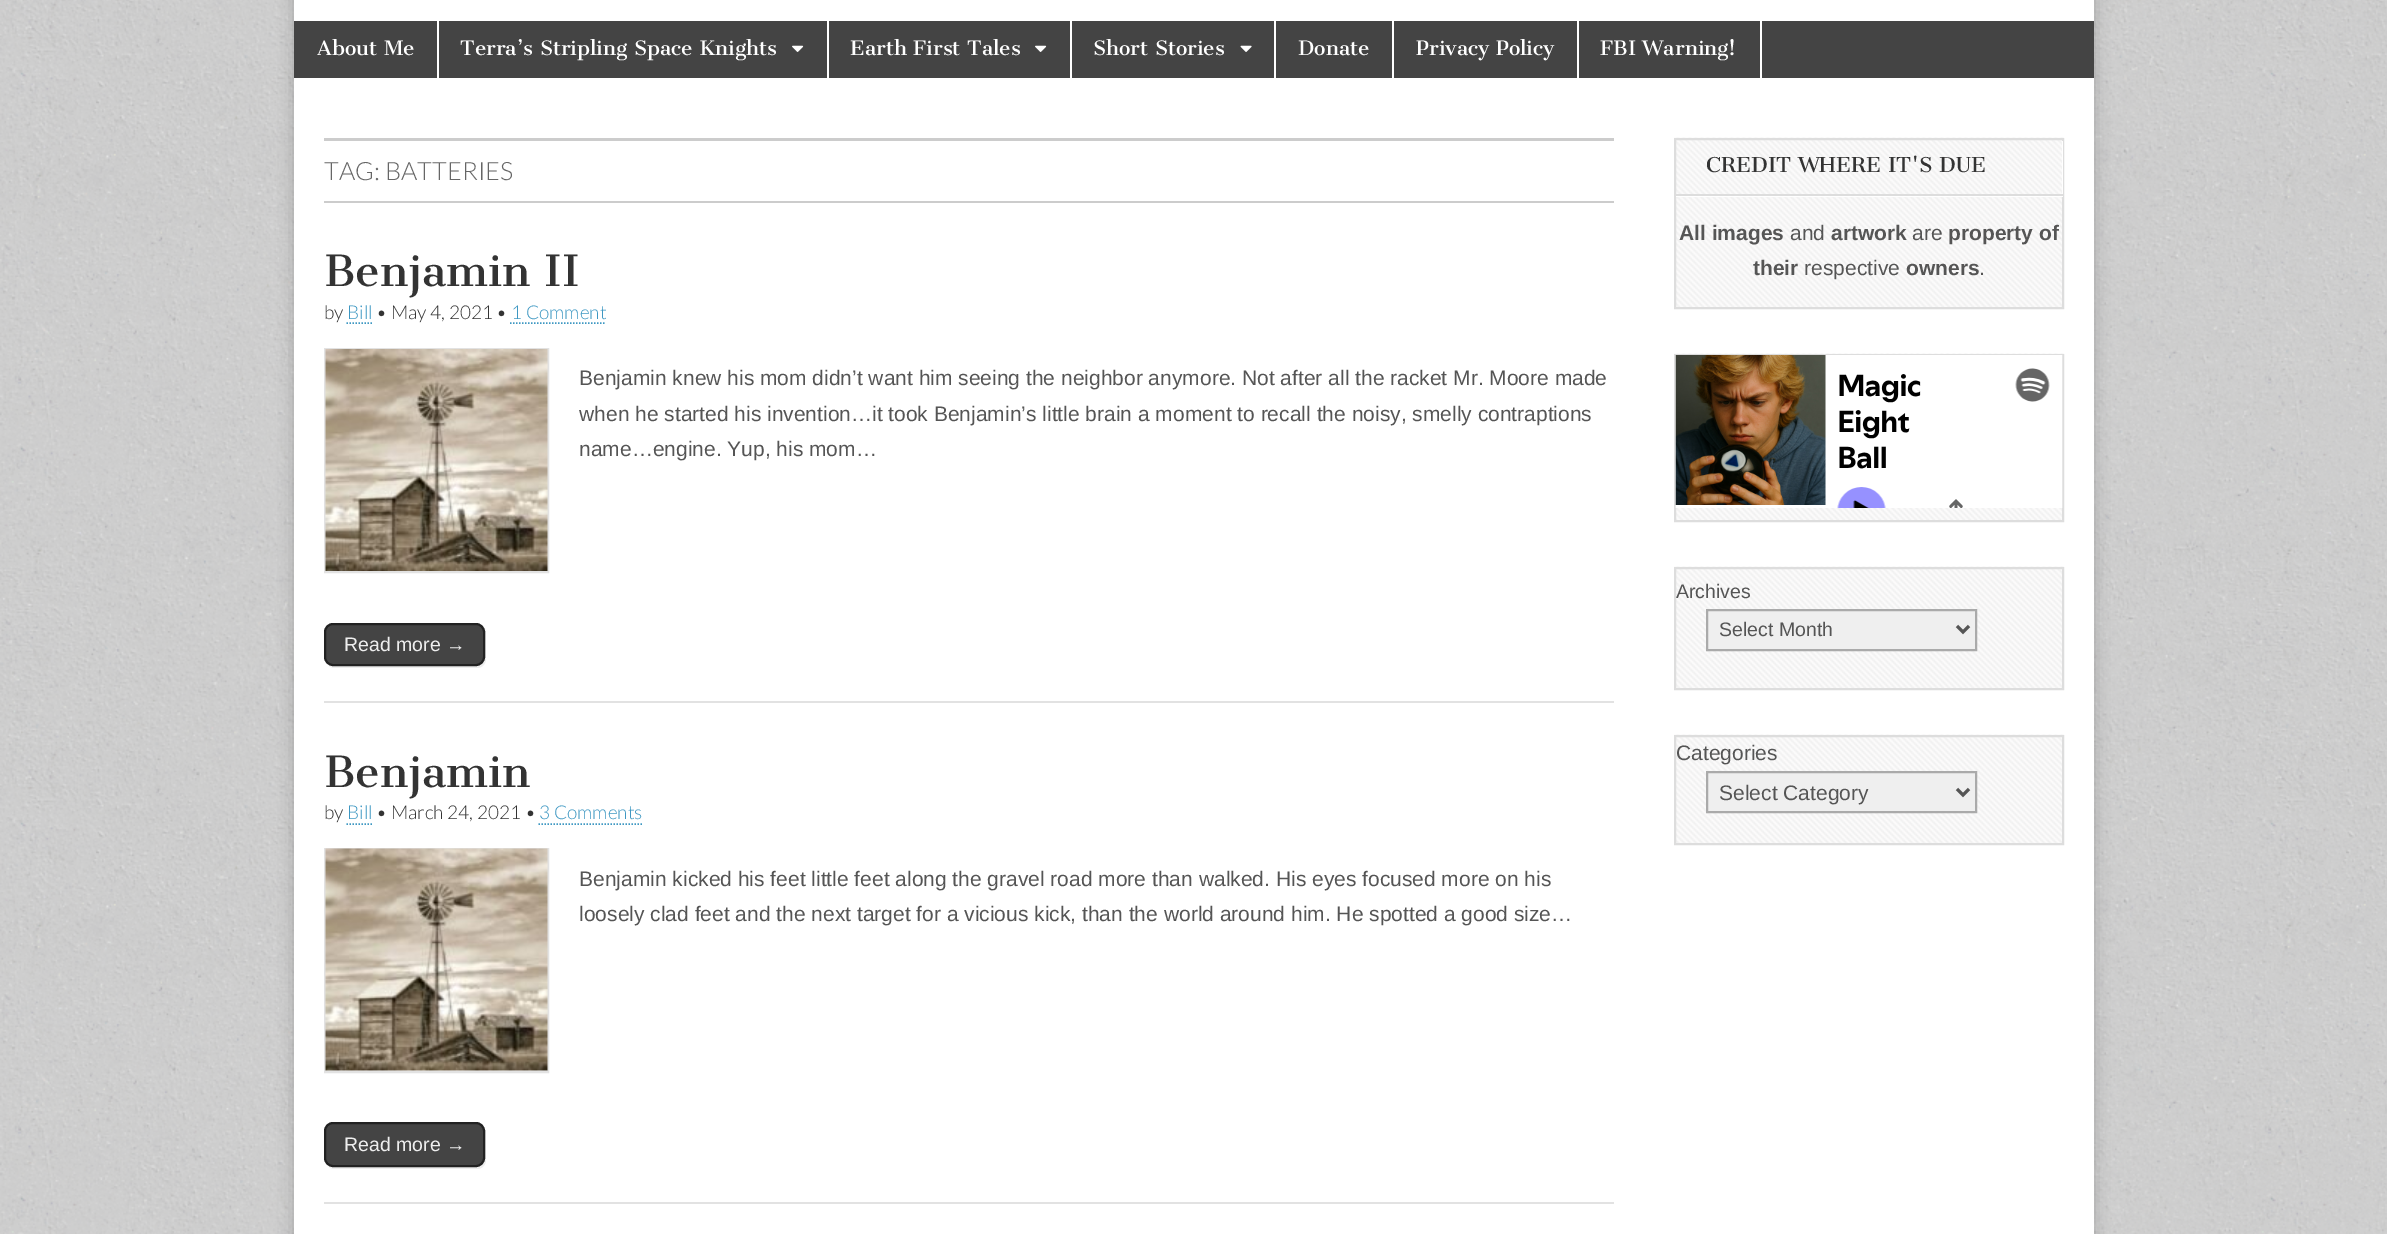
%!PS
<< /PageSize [2387 1234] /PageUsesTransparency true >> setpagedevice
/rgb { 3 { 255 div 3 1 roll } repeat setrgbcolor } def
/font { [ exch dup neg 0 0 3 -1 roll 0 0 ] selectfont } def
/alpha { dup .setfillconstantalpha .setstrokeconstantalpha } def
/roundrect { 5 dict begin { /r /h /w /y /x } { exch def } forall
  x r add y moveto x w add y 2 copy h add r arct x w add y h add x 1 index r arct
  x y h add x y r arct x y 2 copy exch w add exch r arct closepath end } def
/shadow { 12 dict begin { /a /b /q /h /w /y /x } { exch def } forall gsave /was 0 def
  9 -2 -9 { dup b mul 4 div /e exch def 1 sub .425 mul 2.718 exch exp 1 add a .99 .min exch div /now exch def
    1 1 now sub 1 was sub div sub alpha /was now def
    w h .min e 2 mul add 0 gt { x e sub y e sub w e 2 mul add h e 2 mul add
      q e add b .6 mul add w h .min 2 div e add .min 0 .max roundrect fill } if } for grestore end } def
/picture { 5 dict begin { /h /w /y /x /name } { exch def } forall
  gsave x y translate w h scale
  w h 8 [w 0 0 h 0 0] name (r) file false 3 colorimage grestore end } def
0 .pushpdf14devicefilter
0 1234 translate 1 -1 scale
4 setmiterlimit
255 255 255 rgb
0 0 2387 1234 rectfill
(img/1.rgb) 0 0 2387 1234 picture
0 0 0 rgb
294 -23 1800 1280 0 7.5 0.2 shadow
[
  [294 0 1800 1234 255 255 255]
  [294 21 1800 57 68 68 68]
  [437 21 2 57 255 255 255]
  [827 21 2 57 255 255 255]
] { aload pop rgb rectfill } forall
(img/2.rgb) 792 45 12 7 picture
1070 21 2 57 rectfill
(img/2.rgb) 1035 45 12 7 picture
1274 21 2 57 rectfill
(img/3.rgb) 1240 45 12 7 picture
[
  [1392 21 2 57 255 255 255]
  [1577 21 2 57 255 255 255]
  [1760 21 2 57 255 255 255]
  [324 138 1290 3 204 204 204]
  [324 201 1290 2 204 204 204]
] { aload pop rgb rectfill } forall
61 151 194 rgb
1.5 setlinewidth
[1.5 1.5] 0 setdash
346.5 323 moveto 373.5 323 lineto stroke
510 323 moveto 606 323 lineto stroke
226 226 226 rgb
324 701 1290 2 rectfill
2 setlinewidth
[] 0 setdash
325 349 223 223 rectstroke
(img/4.rgb) 325 349 223 222 picture
238 238 238 rgb
328 664 moveto 329 667 332 668 335 668 curveto 477 668 lineto 482 668 486 664 486 659 curveto 486 633 lineto 486 630 485 628 483 626 curveto 484 627 484 629 484 632 curveto 484 657 lineto 484 662 480 666 476 666 curveto 333 666 lineto 331 666 329 665 328 664 curveto closepath fill
68 68 68 rgb
325 624 159 41 8 roundrect gsave fill grestore
34 34 34 rgb
stroke
61 151 194 rgb
1.5 setlinewidth
[1.5 1.5] 0 setdash
346.5 824 moveto 373.5 824 lineto stroke
538.5 824 moveto 642 824 lineto stroke
226 226 226 rgb
324 1202 1290 2 rectfill
2 setlinewidth
[] 0 setdash
325 849 223 223 rectstroke
(img/5.rgb) 325 848 223 223 picture
238 238 238 rgb
328 1165 moveto 329 1168 332 1169 335 1169 curveto 477 1169 lineto 482 1169 486 1165 486 1160 curveto 486 1133 lineto 486 1131 485 1128 483 1127 curveto 484 1128 484 1129 484 1131 curveto 484 1158 lineto 484 1163 480 1167 476 1167 curveto 333 1167 lineto 331 1167 329 1166 328 1165 curveto closepath fill
68 68 68 rgb
325 1123 159 43 8 roundrect gsave fill grestore
34 34 34 rgb
stroke
(img/6.rgb) 1674 137 390 170 picture
221 221 221 rgb
1675 139 388 169 rectstroke
255 255 255 rgb
1676 195 moveto 1676 197 lineto 2063 197 lineto 2063 141 lineto 2062 141 lineto 2062 195 lineto closepath fill
221 221 221 rgb
1676 194 387 2 rectfill
(img/7.rgb) 1674 353 390 167 picture
1675 355 388 166 rectstroke
(img/8.rgb) 1675 355 388 153 picture
(img/9.rgb) 1674 566 390 122 picture
1675 568 388 121 rectstroke
239 239 239 rgb
1707 610 moveto 1976 610 lineto 1976 650 lineto 1707 650 lineto closepath gsave fill grestore
170 170 170 rgb
stroke
85 85 85 rgb
3 setlinewidth
1957 626 moveto 1963 632 lineto 1969 626 lineto stroke
(img/10.rgb) 1674 734 390 109 picture
221 221 221 rgb
2 setlinewidth
1675 736 388 108 rectstroke
239 239 239 rgb
1707 772 moveto 1976 772 lineto 1976 812 lineto 1707 812 lineto closepath gsave fill grestore
170 170 170 rgb
stroke
85 85 85 rgb
3 setlinewidth
1957 789 moveto 1963 795 lineto 1969 789 lineto stroke
/CantataOne-Regular 19.5 font
255 255 255 rgb
[
  [(About Me) 317 55]
  [(Terra’s Stripling Space Knights) 460 55]
  [(Earth First Tales) 850 55]
  [(Short Stories) 1093 55]
  [(Donate) 1298 55]
  [(Privacy Policy) 1416 55]
  [(FBI Warning!) 1600 55]
] { aload pop moveto show } forall
/Lato-Light 25.25 font
102 102 102 rgb
324 180 moveto (TAG: BATTERIES) show
/CantataOne-Regular 42 font
51 51 51 rgb
324 286 moveto (Benjamin II) show
/Lato-Light 19 font
324 319 moveto (by) show
61 151 194 rgb
347 319 moveto (Bill) show
51 51 51 rgb
376 319 moveto (• May 4, 2021 •) show
61 151 194 rgb
511 319 moveto (1 Comment) show
/LiberationSans-Regular 21 font
85 85 85 rgb
[
  [(Benjamin knew his mom didn’t want him seeing the neighbor anymore. Not after all the racket Mr. Moore made) 579 385]
  [(when he started his invention…it took Benjamin’s little brain a moment to recall the noisy, smelly contraptions) 579 421]
  [(name…engine. Yup, his mom…) 579 456]
] { aload pop moveto show } forall
/LiberationSans-Regular 19.5 font
238 238 238 rgb
344 651 moveto (Read more →) show
/CantataOne-Regular 42 font
51 51 51 rgb
324 787 moveto (Benjamin) show
/Lato-Light 19 font
324 819 moveto (by) show
61 151 194 rgb
347 819 moveto (Bill) show
51 51 51 rgb
376 819 moveto (• March 24, 2021 •) show
61 151 194 rgb
539 819 moveto (3 Comments) show
/LiberationSans-Regular 21 font
85 85 85 rgb
579 886 moveto (Benjamin kicked his feet little feet along the gravel road more than walked. His eyes focused more on his) show
579 921 moveto (loosely clad feet and the next target for a vicious kick, than the world around him. He spotted a good size…) show
/LiberationSans-Regular 19.5 font
238 238 238 rgb
344 1151 moveto (Read more →) show
/CantataOne-Regular 20 font
51 51 51 rgb
1706 172 moveto (CREDIT WHERE IT'S DUE) show
/LiberationSans-Bold 21 font
85 85 85 rgb
1679 240 moveto (All images) show
/LiberationSans-Regular 21 font
1790 240 moveto (and) show
/LiberationSans-Bold 21 font
1831 240 moveto (artwork) show
/LiberationSans-Regular 21 font
1912 240 moveto (are) show
/LiberationSans-Bold 21 font
1948 240 moveto (property of) show
1753 275 moveto (their) show
/LiberationSans-Regular 21 font
1804 275 moveto (respective) show
/LiberationSans-Bold 21 font
1906 275 moveto (owners) show
/LiberationSans-Regular 21 font
1979 275 moveto (.) show
/LiberationSans-Regular 19.5 font
1676 598 moveto (Archives) show
1719 636 moveto (Select Month) show
/LiberationSans-Regular 21 font
1676 760 moveto (Categories) show
1719 800 moveto (Select Category) show
.poppdf14devicefilter showpage
